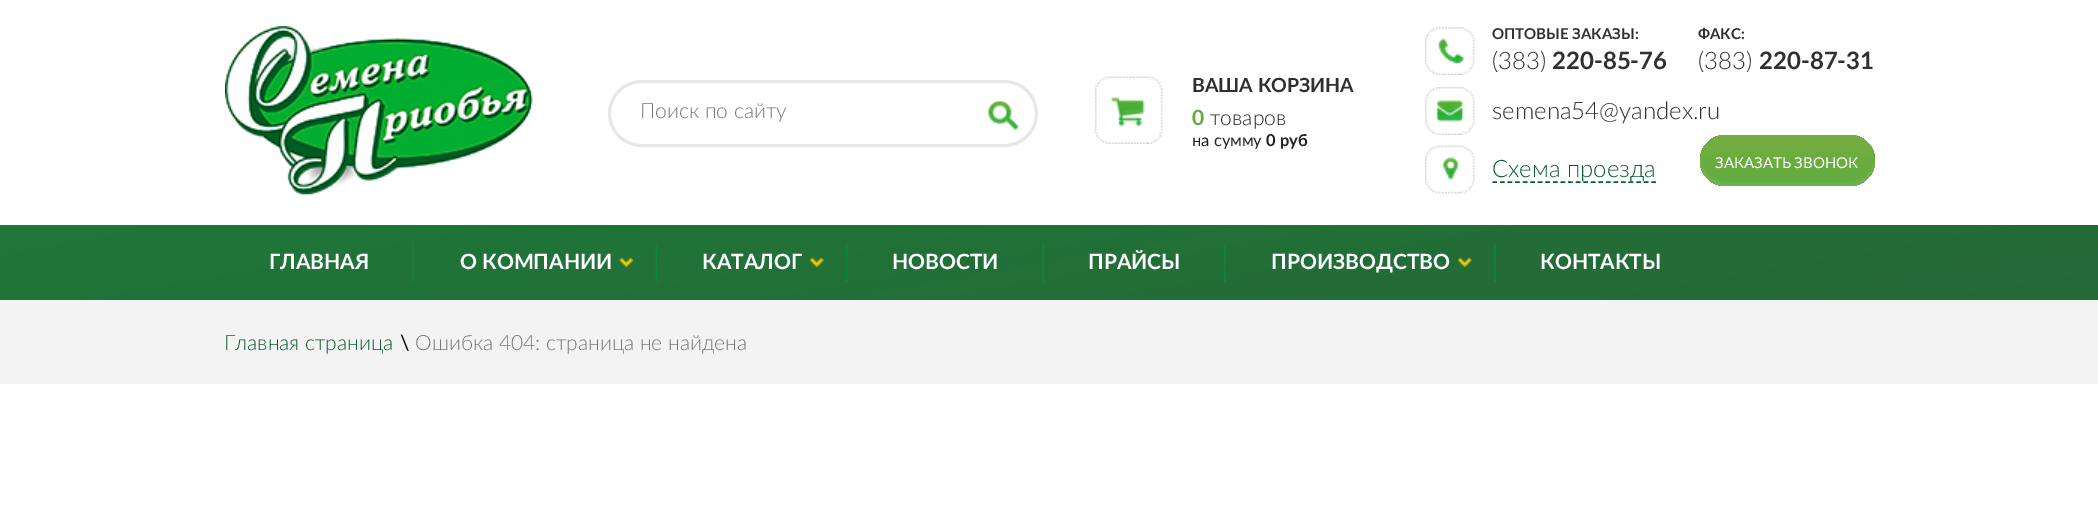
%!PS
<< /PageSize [2098 514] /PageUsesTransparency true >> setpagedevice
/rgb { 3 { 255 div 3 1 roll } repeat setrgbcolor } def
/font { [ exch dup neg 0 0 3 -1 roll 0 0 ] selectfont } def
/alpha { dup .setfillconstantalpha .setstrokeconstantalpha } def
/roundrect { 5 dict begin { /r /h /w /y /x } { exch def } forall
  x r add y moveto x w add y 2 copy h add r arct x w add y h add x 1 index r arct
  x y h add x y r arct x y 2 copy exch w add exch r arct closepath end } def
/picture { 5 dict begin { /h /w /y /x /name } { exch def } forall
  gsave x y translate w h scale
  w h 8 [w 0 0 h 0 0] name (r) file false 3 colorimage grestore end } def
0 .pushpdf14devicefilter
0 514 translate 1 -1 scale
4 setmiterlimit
255 255 255 rgb
0 0 2098 514 rectfill
(img/1.rgb) 225 26 308 169 picture
(img/2.rgb) 1425 27 50 48 picture
231 231 231 rgb
3 setlinewidth
609.5 81.5 427 64 32 roundrect stroke
(img/3.rgb) 988 101 31 29 picture
(img/4.rgb) 1095 76 68 68 picture
(img/5.rgb) 1425 87 50 48 picture
(img/6.rgb) 1425 145 50 49 picture
10 91 45 rgb
1.5 setlinewidth
[4.5 3.07] 0 setdash
1492.5 182 moveto 1656 182 lineto stroke
gsave 1700 135 175 51 25.5 roundrect clip newpath
<< /ShadingType 2 /ColorSpace /DeviceRGB /Coords [1787 186 1787 135] /Extend [true true] /Function << /FunctionType 2 /Domain [0 1] /C0 [0.373 0.675 0.247] /C1 [0.467 0.675 0.247] /N 1 >> >> shfill grestore
0.07 alpha
255 255 255 rgb
1700 158 moveto 1700 160 lineto 1700 175 1711 186 1726 186 curveto 1850 186 lineto 1864 186 1875 175 1875 160 curveto 1875 158 lineto 1874 171 1863 182 1850 182 curveto 1725 182 lineto 1712 182 1701 171 1700 158 curveto closepath fill
1 alpha
gsave 0 225 moveto 2098 225 lineto 2098 300 lineto 0 300 lineto closepath clip newpath
<< /ShadingType 2 /ColorSpace /DeviceRGB /Coords [1087 478 1011 47] /Extend [true true] /Function << /FunctionType 2 /Domain [0 1] /C0 [0.145 0.408 0.216] /C1 [0.122 0.467 0.224] /N 1 >> >> shfill grestore
(img/7.rgb) 412 244 2 38 picture
(img/8.rgb) 619 258 14 9 picture
(img/9.rgb) 655 244 2 38 picture
(img/10.rgb) 810 258 14 9 picture
(img/11.rgb) 846 244 2 38 picture
(img/12.rgb) 1042 244 2 38 picture
(img/13.rgb) 1224 244 2 38 picture
(img/14.rgb) 1458 258 14 9 picture
(img/15.rgb) 1494 244 2 38 picture
243 243 243 rgb
0 300 2098 84 rectfill
/Lato-Bold 15 font
48 48 48 rgb
1492 39 moveto (ОПТОВЫЕ ЗАКАЗЫ:) show
/Lato-Light 24 font
1492 69 moveto (\(383\)) show
/Lato-Bold 24 font
1552 69 moveto (220-85-76) show
/Lato-Bold 15 font
1698 39 moveto (ФАКС:) show
/Lato-Light 24 font
1698 69 moveto (\(383\)) show
/Lato-Bold 24 font
1759 69 moveto (220-87-31) show
/Lato-Light 21 font
117 117 117 rgb
640 118 moveto (Поиск по сайту) show
/Lato-Bold 19.5 font
48 48 48 rgb
1192 92 moveto (ВАША КОРЗИНА) show
/Lato-Bold 21 font
95 172 63 rgb
1192 125 moveto (0) show
/Lato-Light 21 font
34 34 34 rgb
1210 125 moveto (товаров) show
/Lato-Regular 16.5 font
1192 146 moveto (на сумму) show
/Lato-Bold 16.5 font
1266 146 moveto (0 руб) show
/Lato-Light 24 font
48 48 48 rgb
1492 119 moveto (semena54@yandex.ru) show
10 91 45 rgb
1492 177 moveto (Схема проезда) show
/Lato-Regular 15 font
255 255 255 rgb
1715 168 moveto (ЗАКАЗАТЬ ЗВОНОК) show
/Lato-Bold 21 font
[
  [(ГЛАВНАЯ) 269 269]
  [(О КОМПАНИИ) 460 269]
  [(КАТАЛОГ) 702 269]
  [(НОВОСТИ) 892 269]
  [(ПРАЙСЫ) 1088 269]
  [(ПРОИЗВОДСТВО) 1271 269]
  [(КОНТАКТЫ) 1540 269]
] { aload pop moveto show } forall
/Lato-Light 21 font
10 91 45 rgb
224 350 moveto (Главная страница) show
/Lato-Regular 21 font
0 0 0 rgb
400 350 moveto (\\) show
/Lato-Light 21 font
117 117 117 rgb
415 350 moveto (Ошибка 404: страница не найдена) show
.poppdf14devicefilter showpage
